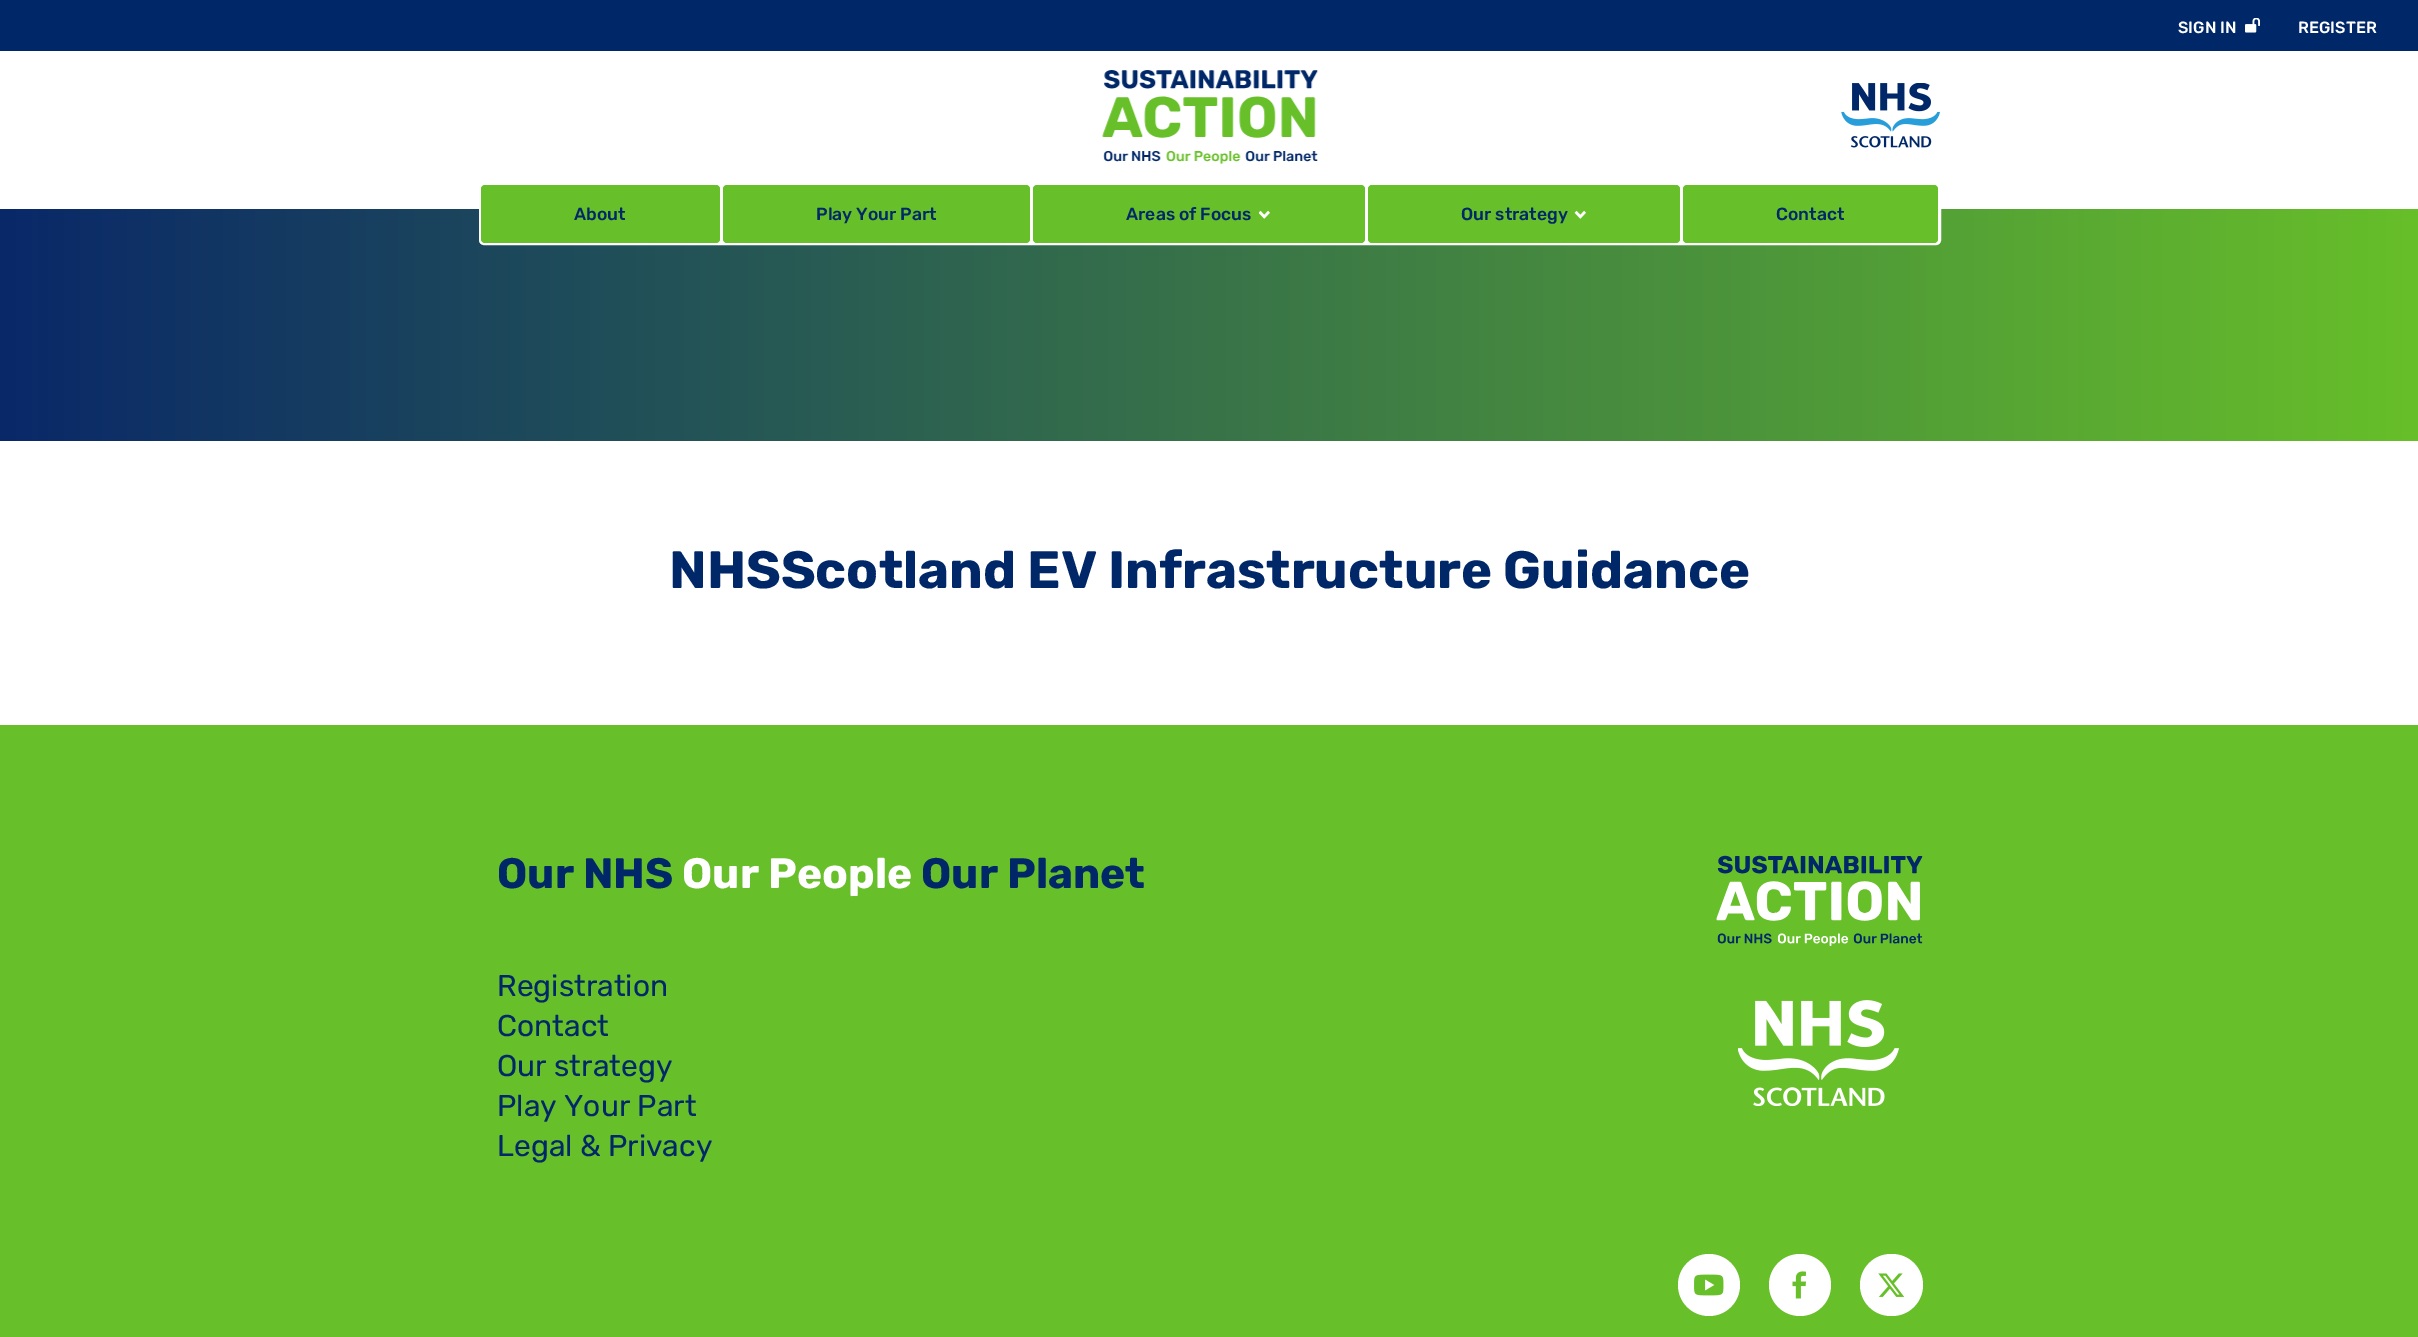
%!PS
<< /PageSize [2418 1337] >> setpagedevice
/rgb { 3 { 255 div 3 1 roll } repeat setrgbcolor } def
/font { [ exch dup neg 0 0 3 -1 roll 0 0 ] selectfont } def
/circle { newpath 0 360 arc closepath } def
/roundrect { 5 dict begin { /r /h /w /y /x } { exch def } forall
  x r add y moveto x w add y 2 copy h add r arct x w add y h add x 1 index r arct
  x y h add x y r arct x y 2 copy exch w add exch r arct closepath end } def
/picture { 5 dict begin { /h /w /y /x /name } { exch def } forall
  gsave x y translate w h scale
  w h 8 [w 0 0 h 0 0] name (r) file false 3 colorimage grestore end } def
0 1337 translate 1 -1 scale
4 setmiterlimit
255 255 255 rgb
0 0 2418 1337 rectfill
0 40 105 rgb
0 0 2418 51 rectfill
(img/1.rgb) 2245 18 15 15 picture
(img/2.rgb) 1102 70 216 94 picture
(img/3.rgb) 1841 83 99 65 picture
gsave 0 209 moveto 2418 209 lineto 2418 441 lineto 0 441 lineto closepath clip newpath
<< /ShadingType 2 /ColorSpace /DeviceRGB /Coords [0 316 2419 316] /Extend [true true] /Function << /FunctionType 2 /Domain [0 1] /C0 [0.035 0.157 0.412] /C1 [0.404 0.749 0.161] /N 1 >> >> shfill grestore
255 255 255 rgb
480.5 184.5 1459 59 3.5 roundrect gsave fill grestore
3 setlinewidth
stroke
103 191 41 rgb
481 185 239 58 4 roundrect fill
723 185 307 58 4 roundrect fill
1033 185 332 58 4 roundrect fill
(img/4.rgb) 1259 210 11 9 picture
1368 185 312 58 4 roundrect fill
(img/5.rgb) 1574 210 12 9 picture
1683 185 255 58 4 roundrect fill
0 725 2418 612 rectfill
(img/6.rgb) 1716 855 207 91 picture
(img/7.rgb) 1738 1000 161 106 picture
255 255 255 rgb
1709 1285 31 circle fill
(img/8.rgb) 1694 1274 30 22 picture
1800 1285 31 circle fill
(img/9.rgb) 1792 1271 14 28 picture
1860 1254 63 62 31 roundrect fill
(img/10.rgb) 1878 1273 27 24 picture
/Rubik-Medium 16.25 font
2178 33 moveto (SIGN IN) show
2298 33 moveto (REGISTER) show
/Rubik-Medium 17.5 font
0 40 105 rgb
[
  [(About) 574 220]
  [(Play Your Part) 816 220]
  [(Areas of Focus) 1126 220]
  [(Our strategy) 1461 220]
  [(Contact) 1776 220]
] { aload pop moveto show } forall
/Rubik-Bold 52.5 font
669 588 moveto (NHSScotland EV Infrastructure Guidance) show
/Rubik-Bold 42.5 font
497 888 moveto (Our NHS) show
255 255 255 rgb
682 888 moveto (Our People) show
0 40 105 rgb
921 888 moveto (Our Planet) show
/Rubik-Regular 30 font
[
  [(Registration) 497 996]
  [(Contact) 497 1036]
  [(Our strategy) 497 1076]
  [(Play Your Part) 497 1116]
  [(Legal & Privacy) 497 1156]
] { aload pop moveto show } forall
showpage
